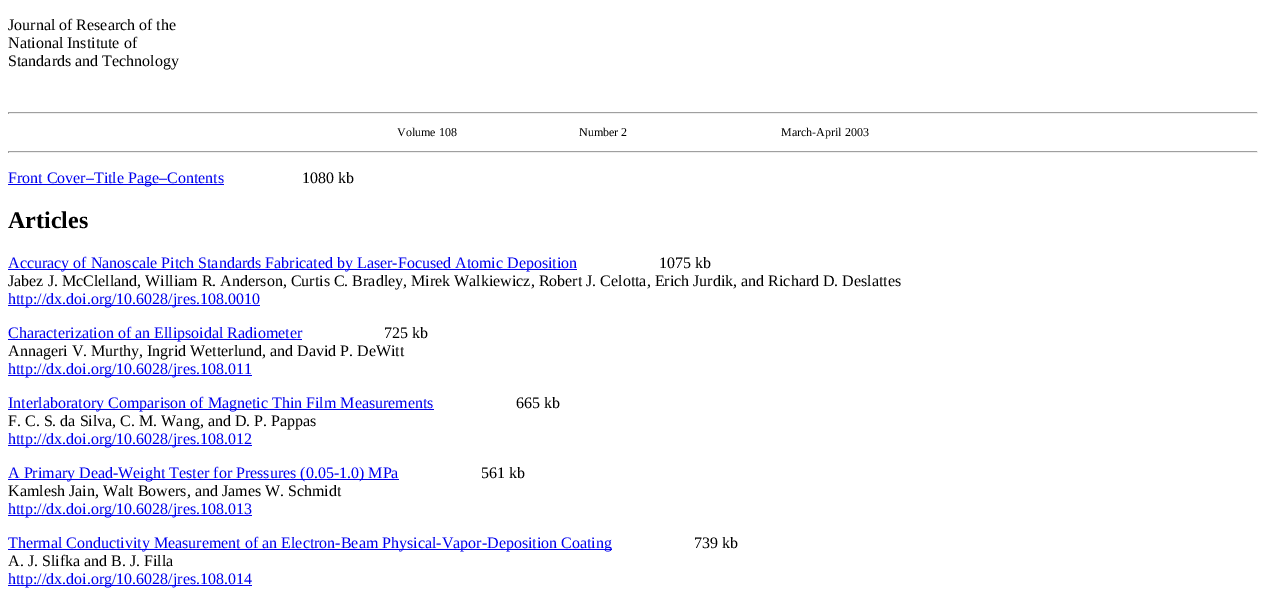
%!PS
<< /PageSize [1266 592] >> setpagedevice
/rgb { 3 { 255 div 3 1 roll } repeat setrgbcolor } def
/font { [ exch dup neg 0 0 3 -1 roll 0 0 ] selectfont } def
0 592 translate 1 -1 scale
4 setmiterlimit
255 255 255 rgb
0 0 1266 592 rectfill
[
  [8 112 1250 1 159 159 159]
  [1257 112 1 2 238 238 238]
  [8 113 1250 1 238 238 238]
  [8 112 1 2 159 159 159]
  [8 151 1250 1 159 159 159]
  [1257 151 1 2 238 238 238]
  [8 152 1250 1 238 238 238]
  [8 151 1 2 159 159 159]
  [8 184 216 1 0 0 238]
  [8 269 569 1 0 0 238]
  [8 305 252 1 0 0 238]
  [8 339 294 1 0 0 238]
  [8 375 244 1 0 0 238]
  [8 409 426 1 0 0 238]
  [8 445 244 1 0 0 238]
  [8 479 391 1 0 0 238]
  [8 515 244 1 0 0 238]
  [8 549 604 1 0 0 238]
  [8 585 244 1 0 0 238]
] { aload pop rgb rectfill } forall
/LiberationSerif-Regular 16 font
0 0 0 rgb
[
  [(Journal of Research of the) 8 30]
  [(National Institute of) 8 48]
  [(Standards and Technology) 8 66]
] { aload pop moveto show } forall
/LiberationSerif-Regular 12 font
[
  [(Volume 108) 397 136]
  [(Number 2) 579 136]
  [(March-April 2003) 781 136]
] { aload pop moveto show } forall
/LiberationSerif-Regular 16 font
0 0 238 rgb
8 183 moveto (Front Cover–Title Page–Contents) show
0 0 0 rgb
302 183 moveto (1080 kb) show
/LiberationSerif-Bold 24 font
8 228 moveto (Articles) show
/LiberationSerif-Regular 16 font
0 0 238 rgb
8 268 moveto (Accuracy of Nanoscale Pitch Standards Fabricated by Laser-Focused Atomic Deposition) show
0 0 0 rgb
659 268 moveto (1075 kb) show
8 286 moveto (Jabez J. McClelland, William R. Anderson, Curtis C. Bradley, Mirek Walkiewicz, Robert J. Celotta, Erich Jurdik, and Richard D. Deslattes) show
0 0 238 rgb
8 304 moveto (http://dx.doi.org/10.6028/jres.108.0010) show
8 338 moveto (Characterization of an Ellipsoidal Radiometer) show
0 0 0 rgb
384 338 moveto (725 kb) show
8 356 moveto (Annageri V. Murthy, Ingrid Wetterlund, and David P. DeWitt) show
0 0 238 rgb
8 374 moveto (http://dx.doi.org/10.6028/jres.108.011) show
8 408 moveto (Interlaboratory Comparison of Magnetic Thin Film Measurements) show
0 0 0 rgb
516 408 moveto (665 kb) show
8 426 moveto (F. C. S. da Silva, C. M. Wang, and D. P. Pappas) show
0 0 238 rgb
8 444 moveto (http://dx.doi.org/10.6028/jres.108.012) show
8 478 moveto (A Primary Dead-Weight Tester for Pressures \(0.05-1.0\) MPa) show
0 0 0 rgb
481 478 moveto (561 kb) show
8 496 moveto (Kamlesh Jain, Walt Bowers, and James W. Schmidt) show
0 0 238 rgb
8 514 moveto (http://dx.doi.org/10.6028/jres.108.013) show
8 548 moveto (Thermal Conductivity Measurement of an Electron-Beam Physical-Vapor-Deposition Coating) show
0 0 0 rgb
694 548 moveto (739 kb) show
8 566 moveto (A. J. Slifka and B. J. Filla) show
0 0 238 rgb
8 584 moveto (http://dx.doi.org/10.6028/jres.108.014) show
showpage
